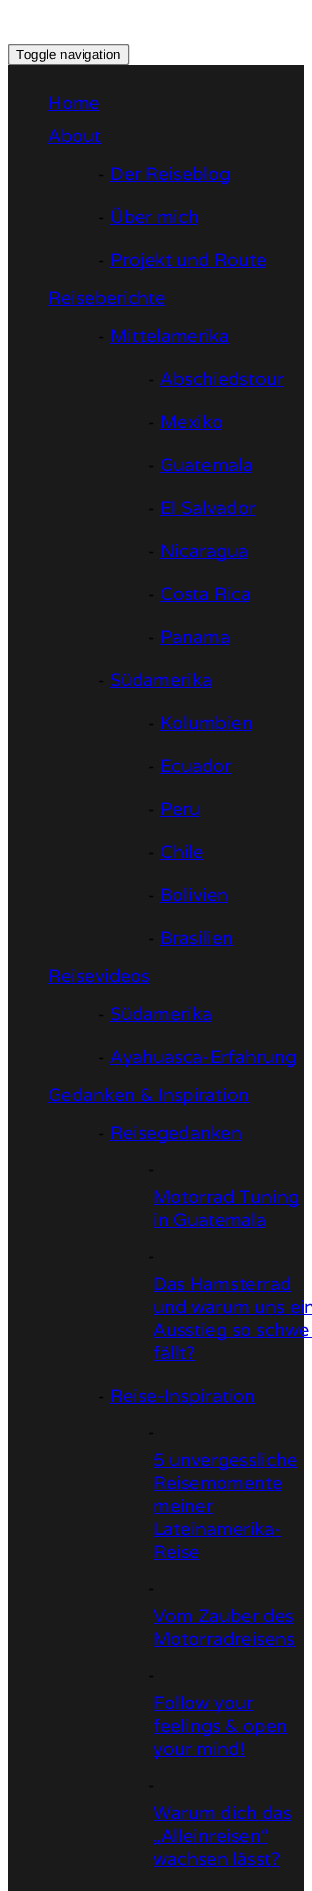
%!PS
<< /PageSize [312 1891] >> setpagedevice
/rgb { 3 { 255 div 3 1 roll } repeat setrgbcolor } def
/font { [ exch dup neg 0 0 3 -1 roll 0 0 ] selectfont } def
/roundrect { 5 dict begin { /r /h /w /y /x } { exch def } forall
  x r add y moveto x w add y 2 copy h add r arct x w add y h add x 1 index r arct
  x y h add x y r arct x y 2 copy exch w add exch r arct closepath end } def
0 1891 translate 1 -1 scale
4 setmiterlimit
255 255 255 rgb
0 0 312 1891 rectfill
239 239 239 rgb
8.5 44.5 120 20 1.5 roundrect gsave fill grestore
118 118 118 rgb
stroke
[
  [8 65 296 1826 26 26 26]
  [48 110 51 1 0 0 238]
  [48 143 53 1 0 0 238]
  [110 181 120 1 0 0 238]
  [110 224 88 1 0 0 238]
  [110 267 156 1 0 0 238]
  [48 305 118 1 0 0 238]
  [110 343 119 1 0 0 238]
  [160 386 123 1 0 0 238]
  [160 429 62 1 0 0 238]
  [160 472 92 1 0 0 238]
  [160 515 95 1 0 0 238]
  [160 558 88 1 0 0 238]
  [160 601 90 1 0 0 238]
  [160 644 69 1 0 0 238]
  [110 687 101 1 0 0 238]
  [160 730 92 1 0 0 238]
  [160 773 71 1 0 0 238]
  [160 816 40 1 0 0 238]
  [160 859 43 1 0 0 238]
  [160 902 68 1 0 0 238]
  [160 945 73 1 0 0 238]
  [48 983 102 1 0 0 238]
  [110 1021 101 1 0 0 238]
  [110 1064 186 1 0 0 238]
  [48 1102 201 1 0 0 238]
  [110 1140 131 1 0 0 238]
  [153 1204 146 1 0 0 238]
  [153 1227 113 1 0 0 238]
  [153 1291 138 1 0 0 238]
  [153 1314 159 1 0 0 238]
  [153 1337 159 1 0 0 238]
  [153 1360 42 1 0 0 238]
  [110 1403 145 1 0 0 238]
  [153 1467 144 1 0 0 238]
  [153 1490 129 1 0 0 238]
  [153 1513 60 1 0 0 238]
  [153 1536 129 1 0 0 238]
  [153 1559 47 1 0 0 238]
  [153 1623 141 1 0 0 238]
  [153 1646 142 1 0 0 238]
  [153 1710 100 1 0 0 238]
  [153 1733 134 1 0 0 238]
  [153 1756 92 1 0 0 238]
  [153 1820 139 1 0 0 238]
  [153 1843 115 1 0 0 238]
  [153 1866 127 1 0 0 238]
] { aload pop rgb rectfill } forall
/LiberationSans-Regular 13.25 font
0 0 0 rgb
16 59 moveto (Toggle navigation) show
/Varela-Regular 18 font
0 0 238 rgb
48 109 moveto (Home) show
48 142 moveto (About) show
/Varela-Regular 16 font
0 0 0 rgb
98 180 moveto (-) show
/Varela-Regular 18 font
0 0 238 rgb
110 180 moveto (Der Reiseblog) show
/Varela-Regular 16 font
0 0 0 rgb
98 223 moveto (-) show
/Varela-Regular 18 font
0 0 238 rgb
110 223 moveto (Über mich) show
/Varela-Regular 16 font
0 0 0 rgb
98 266 moveto (-) show
/Varela-Regular 18 font
0 0 238 rgb
110 266 moveto (Projekt und Route) show
48 304 moveto (Reiseberichte) show
/Varela-Regular 16 font
0 0 0 rgb
98 342 moveto (-) show
/Varela-Regular 18 font
0 0 238 rgb
110 342 moveto (Mittelamerika) show
/Varela-Regular 16 font
0 0 0 rgb
148 385 moveto (-) show
/Varela-Regular 18 font
0 0 238 rgb
160 385 moveto (Abschiedstour) show
/Varela-Regular 16 font
0 0 0 rgb
148 428 moveto (-) show
/Varela-Regular 18 font
0 0 238 rgb
160 428 moveto (Mexiko) show
/Varela-Regular 16 font
0 0 0 rgb
148 471 moveto (-) show
/Varela-Regular 18 font
0 0 238 rgb
160 471 moveto (Guatemala) show
/Varela-Regular 16 font
0 0 0 rgb
148 514 moveto (-) show
/Varela-Regular 18 font
0 0 238 rgb
160 514 moveto (El Salvador) show
/Varela-Regular 16 font
0 0 0 rgb
148 557 moveto (-) show
/Varela-Regular 18 font
0 0 238 rgb
160 557 moveto (Nicaragua) show
/Varela-Regular 16 font
0 0 0 rgb
148 600 moveto (-) show
/Varela-Regular 18 font
0 0 238 rgb
160 600 moveto (Costa Rica) show
/Varela-Regular 16 font
0 0 0 rgb
148 643 moveto (-) show
/Varela-Regular 18 font
0 0 238 rgb
160 643 moveto (Panama) show
/Varela-Regular 16 font
0 0 0 rgb
98 686 moveto (-) show
/Varela-Regular 18 font
0 0 238 rgb
110 686 moveto (Südamerika) show
/Varela-Regular 16 font
0 0 0 rgb
148 729 moveto (-) show
/Varela-Regular 18 font
0 0 238 rgb
160 729 moveto (Kolumbien) show
/Varela-Regular 16 font
0 0 0 rgb
148 772 moveto (-) show
/Varela-Regular 18 font
0 0 238 rgb
160 772 moveto (Ecuador) show
/Varela-Regular 16 font
0 0 0 rgb
148 815 moveto (-) show
/Varela-Regular 18 font
0 0 238 rgb
160 815 moveto (Peru) show
/Varela-Regular 16 font
0 0 0 rgb
148 858 moveto (-) show
/Varela-Regular 18 font
0 0 238 rgb
160 858 moveto (Chile) show
/Varela-Regular 16 font
0 0 0 rgb
148 901 moveto (-) show
/Varela-Regular 18 font
0 0 238 rgb
160 901 moveto (Bolivien) show
/Varela-Regular 16 font
0 0 0 rgb
148 944 moveto (-) show
/Varela-Regular 18 font
0 0 238 rgb
160 944 moveto (Brasilien) show
48 982 moveto (Reisevideos) show
/Varela-Regular 16 font
0 0 0 rgb
98 1020 moveto (-) show
/Varela-Regular 18 font
0 0 238 rgb
110 1020 moveto (Südamerika) show
/Varela-Regular 16 font
0 0 0 rgb
98 1063 moveto (-) show
/Varela-Regular 18 font
0 0 238 rgb
110 1063 moveto (Ayahuasca-Erfahrung) show
48 1101 moveto (Gedanken & Inspiration) show
/Varela-Regular 16 font
0 0 0 rgb
98 1139 moveto (-) show
/Varela-Regular 18 font
0 0 238 rgb
110 1139 moveto (Reisegedanken) show
/Varela-Regular 16 font
0 0 0 rgb
148 1175 moveto (-) show
/Varela-Regular 18 font
0 0 238 rgb
153 1203 moveto (Motorrad Tuning) show
153 1226 moveto (in Guatemala) show
/Varela-Regular 16 font
0 0 0 rgb
148 1262 moveto (-) show
/Varela-Regular 18 font
0 0 238 rgb
[
  [(Das Hamsterrad) 153 1290]
  [(und warum uns ein) 153 1313]
  [(Ausstieg so schwe) 153 1336]
  [(fällt?) 153 1359]
] { aload pop moveto show } forall
/Varela-Regular 16 font
0 0 0 rgb
98 1402 moveto (-) show
/Varela-Regular 18 font
0 0 238 rgb
110 1402 moveto (Reise-Inspiration) show
/Varela-Regular 16 font
0 0 0 rgb
148 1438 moveto (-) show
/Varela-Regular 18 font
0 0 238 rgb
[
  [(5 unvergessliche) 153 1466]
  [(Reisemomente) 153 1489]
  [(meiner) 153 1512]
  [(Lateinamerika-) 153 1535]
  [(Reise) 153 1558]
] { aload pop moveto show } forall
/Varela-Regular 16 font
0 0 0 rgb
148 1594 moveto (-) show
/Varela-Regular 18 font
0 0 238 rgb
153 1622 moveto (Vom Zauber des) show
153 1645 moveto (Motorradreisens) show
/Varela-Regular 16 font
0 0 0 rgb
148 1681 moveto (-) show
/Varela-Regular 18 font
0 0 238 rgb
[
  [(Follow your) 153 1709]
  [(feelings & open) 153 1732]
  [(your mind!) 153 1755]
] { aload pop moveto show } forall
/Varela-Regular 16 font
0 0 0 rgb
148 1791 moveto (-) show
/Varela-Regular 18 font
0 0 238 rgb
[
  [(Warum dich das) 153 1819]
  [(„Alleinreisen“) 153 1842]
  [(wachsen lässt?) 153 1865]
] { aload pop moveto show } forall
showpage
